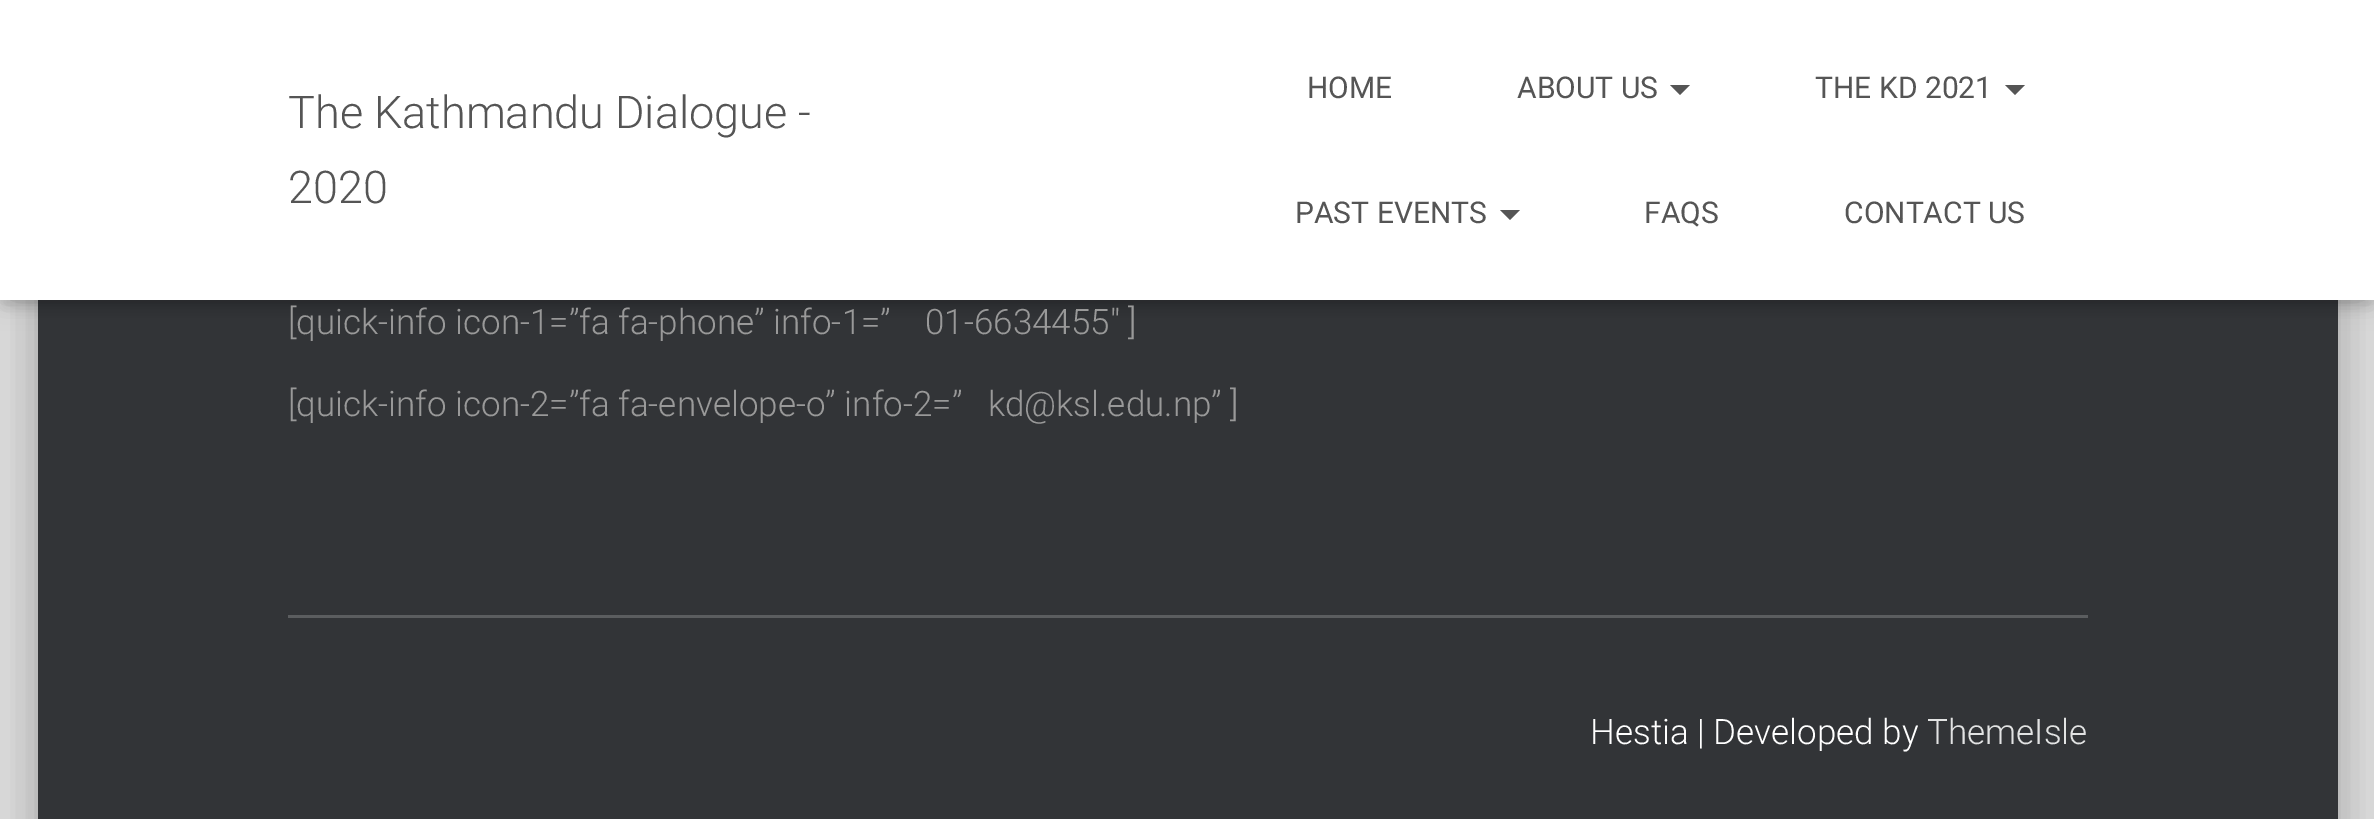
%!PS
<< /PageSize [2374 819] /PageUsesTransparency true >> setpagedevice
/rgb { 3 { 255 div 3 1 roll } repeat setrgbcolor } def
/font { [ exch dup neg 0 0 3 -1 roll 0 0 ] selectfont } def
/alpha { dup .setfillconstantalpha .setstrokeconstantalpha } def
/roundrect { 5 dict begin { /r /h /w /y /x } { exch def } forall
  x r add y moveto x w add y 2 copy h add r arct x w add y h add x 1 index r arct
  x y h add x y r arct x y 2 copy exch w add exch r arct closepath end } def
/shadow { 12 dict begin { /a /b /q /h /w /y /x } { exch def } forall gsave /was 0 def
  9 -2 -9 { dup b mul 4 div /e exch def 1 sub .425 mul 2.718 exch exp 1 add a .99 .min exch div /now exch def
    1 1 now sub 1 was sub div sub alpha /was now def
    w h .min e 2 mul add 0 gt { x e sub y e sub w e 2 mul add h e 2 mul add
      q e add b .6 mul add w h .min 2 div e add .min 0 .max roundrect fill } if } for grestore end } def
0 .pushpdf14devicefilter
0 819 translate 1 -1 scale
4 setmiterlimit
229 229 229 rgb
0 0 2374 819 rectfill
0 0 0 rgb
50 -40 2275 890 2.5 12.5 0.2 shadow
25 -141 2325 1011 28 37.5 0.12 shadow
33 -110 2310 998 20 30 0.14 shadow
50 52 55 rgb
38 300 2300 519 rectfill
0 0 0 rgb
5 15 2365 290 0 6 0.1 shadow
0 3 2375 300 0 12.5 0.12 shadow
15 18 2345 270 0 12.5 0.42 shadow
255 255 255 rgb
0 0 2374 300 rectfill
85 85 85 rgb
1670 85 moveto 1690 85 lineto 1680 95 lineto closepath fill
2005 85 moveto 2025 85 lineto 2015 95 lineto closepath fill
1500 210 moveto 1520 210 lineto 1510 220 lineto closepath fill
91 93 95 rgb
288 615 1800 3 rectfill
/Roboto-Light 45 font
85 85 85 rgb
288 128 moveto (The Kathmandu Dialogue -) show
288 203 moveto (2020) show
/Roboto-Regular 30 font
[
  [(HOME) 1307 98]
  [(ABOUT US) 1517 98]
  [(THE KD 2021) 1815 98]
  [(PAST EVENTS) 1295 223]
  [(FAQS) 1644 223]
  [(CONTACT US) 1844 223]
] { aload pop moveto show } forall
/Roboto-Light 35 font
153 153 153 rgb
288 334 moveto ([quick-info icon-1=”fa fa-phone” info-1=”    01-6634455″ ]) show
288 416 moveto ([quick-info icon-2=”fa fa-envelope-o” info-2=”   kd@ksl.edu.np” ]) show
255 255 255 rgb
1590 744 moveto (Hestia | Developed by) show
226 227 227 rgb
1927 744 moveto (ThemeIsle) show
.poppdf14devicefilter showpage
